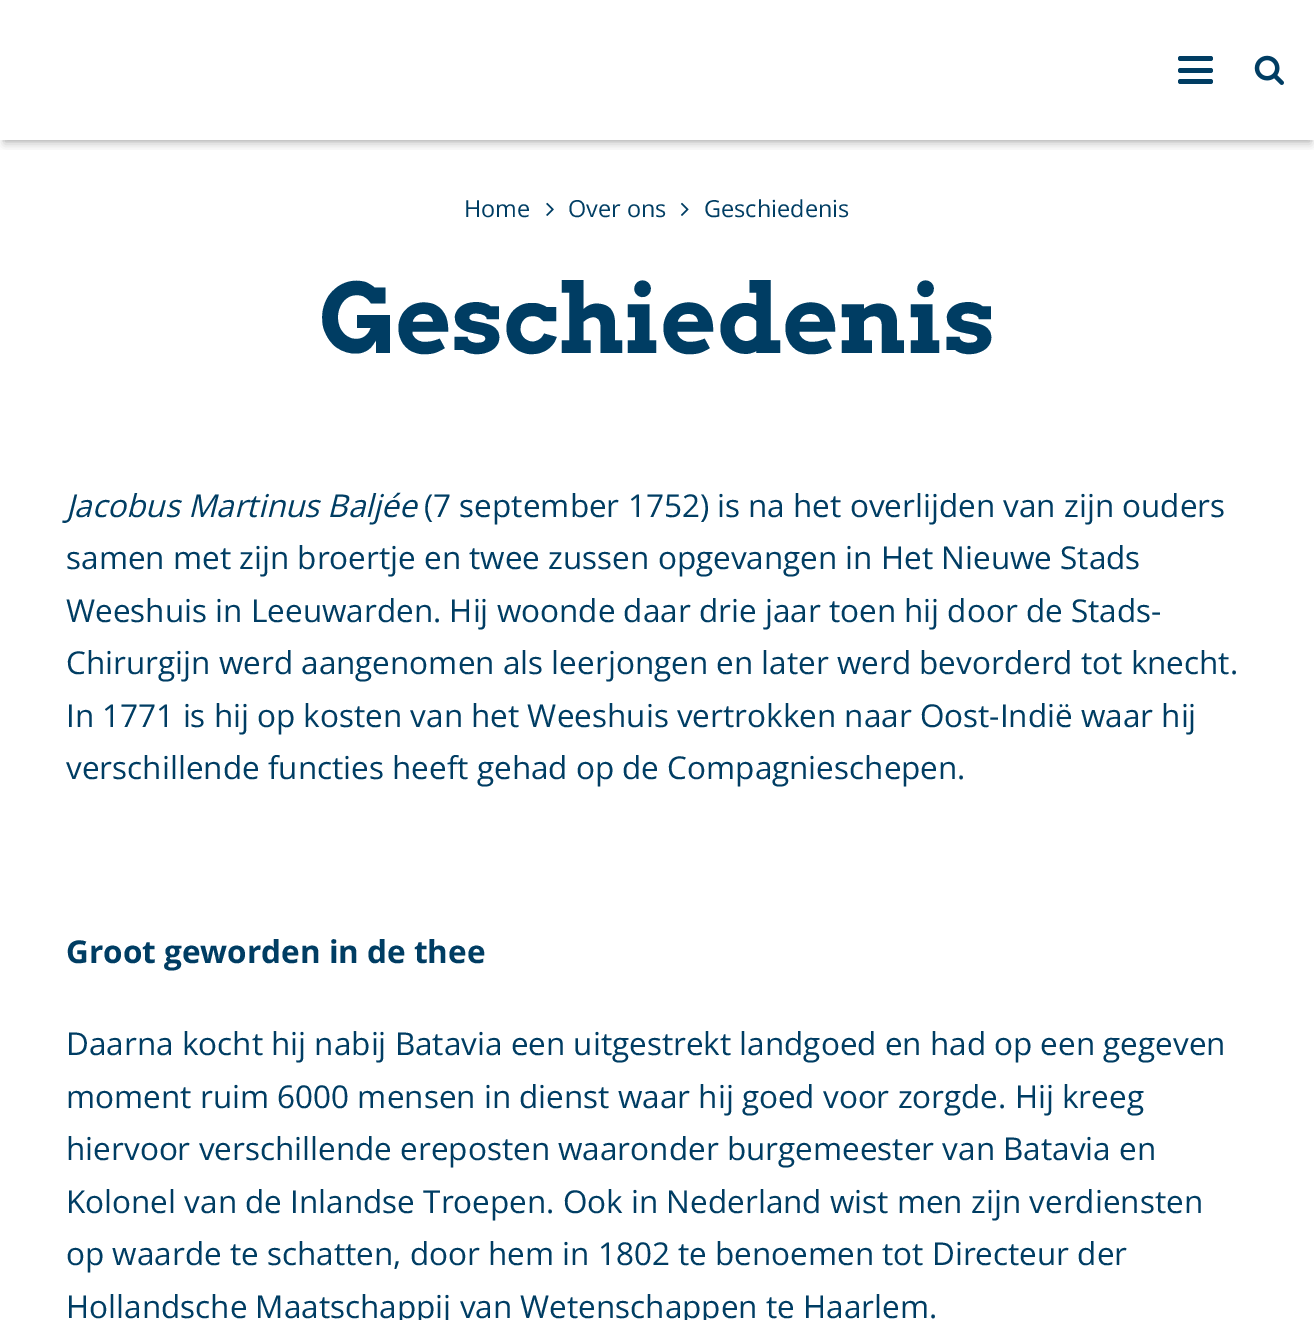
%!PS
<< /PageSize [1314 1320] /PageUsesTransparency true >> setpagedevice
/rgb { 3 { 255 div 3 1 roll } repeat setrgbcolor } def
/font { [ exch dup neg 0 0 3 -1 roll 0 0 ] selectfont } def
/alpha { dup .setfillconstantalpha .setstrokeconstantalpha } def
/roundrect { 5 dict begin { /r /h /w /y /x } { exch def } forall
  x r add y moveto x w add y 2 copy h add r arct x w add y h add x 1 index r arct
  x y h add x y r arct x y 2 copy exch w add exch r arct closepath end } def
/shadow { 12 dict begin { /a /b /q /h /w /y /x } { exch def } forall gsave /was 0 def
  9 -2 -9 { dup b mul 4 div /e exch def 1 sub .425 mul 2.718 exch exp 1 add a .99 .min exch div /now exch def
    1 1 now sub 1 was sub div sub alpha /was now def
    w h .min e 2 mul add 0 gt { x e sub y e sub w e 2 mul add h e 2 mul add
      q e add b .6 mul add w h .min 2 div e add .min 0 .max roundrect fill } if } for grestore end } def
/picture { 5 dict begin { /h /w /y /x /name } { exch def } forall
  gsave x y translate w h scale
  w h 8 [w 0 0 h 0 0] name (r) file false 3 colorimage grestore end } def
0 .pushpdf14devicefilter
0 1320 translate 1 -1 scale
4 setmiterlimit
255 255 255 rgb
0 0 1314 1320 rectfill
gsave
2 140 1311 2 rectclip
0 0 0 rgb
2 5 1311 137 0 1 0.05 shadow
grestore
gsave
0 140 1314 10 rectclip
0 0 0 rgb
4 11 1307 133 0 4.5 0.22 shadow
grestore
0 61 99 rgb
1178 68 35 5 2.5 roundrect fill
1178 56 35 5 2.5 roundrect fill
1178 79 35 5 2.5 roundrect fill
(img/1.rgb) 1254 55 30 30 picture
(img/2.rgb) 546 202 8 14 picture
(img/3.rgb) 681 202 8 14 picture
/OpenSans-Regular 23.5 font
[
  [(Home) 464 217]
  [(Over ons) 568 217]
  [(Geschiedenis) 704 217]
] { aload pop moveto show } forall
/Arvo-Bold 96.25 font
319 353 moveto (Geschiedenis) show
/OpenSans-Italic 31.5 font
66 517 moveto (Jacobus Martinus Baljée) show
/OpenSans-Regular 31.5 font
[
  [(\(7 september 1752\) is na het overlijden van zijn ouders) 424 517]
  [(samen met zijn broertje en twee zussen opgevangen in Het Nieuwe Stads) 66 569]
  [(Weeshuis in Leeuwarden. Hij woonde daar drie jaar toen hij door de Stads-) 66 622]
  [(Chirurgijn werd aangenomen als leerjongen en later werd bevorderd tot knecht.) 66 674]
  [(In 1771 is hij op kosten van het Weeshuis vertrokken naar Oost-Indië waar hij) 66 727]
  [(verschillende functies heeft gehad op de Compagnieschepen.) 66 779]
] { aload pop moveto show } forall
/OpenSans-Bold 31.5 font
66 963 moveto (Groot geworden in de thee) show
/OpenSans-Regular 31.5 font
[
  [(Daarna kocht hij nabij Batavia een uitgestrekt landgoed en had op een gegeven) 66 1055]
  [(moment ruim 6000 mensen in dienst waar hij goed voor zorgde. Hij kreeg) 66 1108]
  [(hiervoor verschillende ereposten waaronder burgemeester van Batavia en) 66 1160]
  [(Kolonel van de Inlandse Troepen. Ook in Nederland wist men zijn verdiensten) 66 1213]
  [(op waarde te schatten, door hem in 1802 te benoemen tot Directeur der) 66 1265]
  [(Hollandsche Maatschappij van Wetenschappen te Haarlem.) 66 1318]
] { aload pop moveto show } forall
.poppdf14devicefilter showpage
